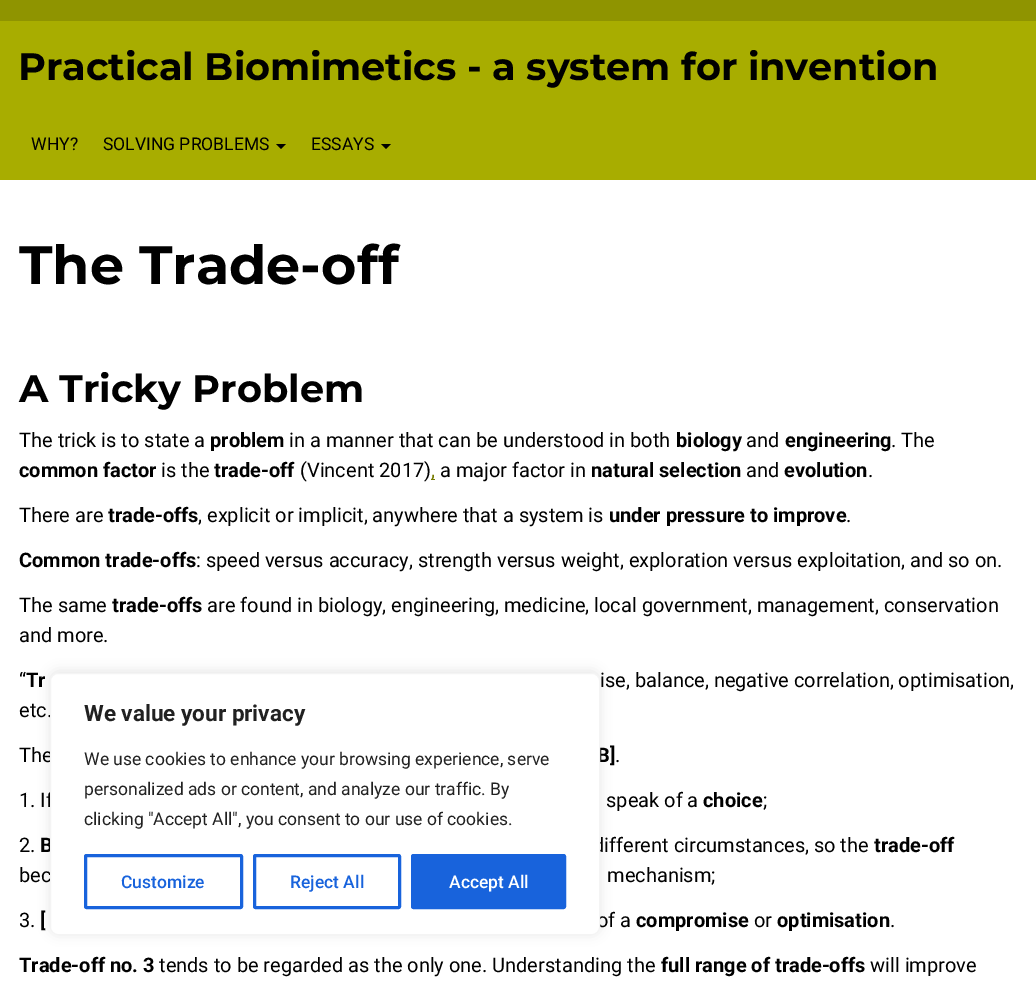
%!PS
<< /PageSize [1036 985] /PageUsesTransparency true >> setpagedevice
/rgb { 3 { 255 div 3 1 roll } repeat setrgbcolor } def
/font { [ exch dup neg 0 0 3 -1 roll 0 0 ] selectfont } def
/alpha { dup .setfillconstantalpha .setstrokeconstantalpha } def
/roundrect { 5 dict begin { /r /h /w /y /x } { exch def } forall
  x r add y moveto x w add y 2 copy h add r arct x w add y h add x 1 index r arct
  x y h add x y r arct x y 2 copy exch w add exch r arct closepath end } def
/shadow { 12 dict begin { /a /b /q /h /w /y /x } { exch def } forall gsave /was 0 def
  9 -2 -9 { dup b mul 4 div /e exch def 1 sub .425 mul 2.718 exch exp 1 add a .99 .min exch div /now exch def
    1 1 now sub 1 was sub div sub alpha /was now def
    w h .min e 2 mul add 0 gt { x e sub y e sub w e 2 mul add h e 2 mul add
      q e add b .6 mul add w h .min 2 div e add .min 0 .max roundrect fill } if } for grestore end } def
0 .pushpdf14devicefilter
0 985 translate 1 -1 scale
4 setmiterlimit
255 255 255 rgb
0 0 1036 985 rectfill
143 148 0 rgb
0 0 1036 21 rectfill
168 173 0 rgb
0 21 1036 159 rectfill
0 0 0 rgb
276 144 moveto 286 144 lineto 281 149 lineto closepath fill
381 144 moveto 391 144 lineto 386 149 lineto closepath fill
118 122 0 rgb
431 479 4 1 rectfill
172 171 171 rgb
50 671 550 263 8 6 0.3 shadow
/Montserrat-Bold 38.25 font
0 0 0 rgb
18 80 moveto -0.1 0 (Practical Biomimetics - a system for invention) ashow
/Roboto-Regular 17.5 font
[
  [(WHY?) 31 150]
  [(SOLVING PROBLEMS) 103 150]
  [(ESSAYS) 311 150]
] { aload pop moveto show } forall
/Montserrat-Bold 54 font
19 284 moveto (The Trade-off) show
/Montserrat-Bold 38.25 font
19 402 moveto (A Tricky Problem) show
/Roboto-Regular 20 font
19 447 moveto (The trick is to state a) show
/Roboto-Bold 20 font
210 447 moveto (problem) show
/Roboto-Regular 20 font
289 447 moveto (in a manner that can be understood in both) show
/Roboto-Bold 20 font
676 447 moveto (biology) show
/Roboto-Regular 20 font
746 447 moveto (and) show
/Roboto-Bold 20 font
785 447 moveto (engineering) show
/Roboto-Regular 20 font
891 447 moveto (. The) show
/Roboto-Bold 20 font
19 477 moveto (common factor) show
/Roboto-Regular 20 font
161 477 moveto (is the) show
/Roboto-Bold 20 font
214 477 moveto (trade-off) show
/Roboto-Regular 20 font
300 477 moveto (\(Vincent 2017\)) show
118 122 0 rgb
431 477 moveto (,) show
0 0 0 rgb
440 477 moveto (a major factor in) show
/Roboto-Bold 20 font
591 477 moveto (natural selection) show
/Roboto-Regular 20 font
746 477 moveto (and) show
/Roboto-Bold 20 font
784 477 moveto (evolution) show
/Roboto-Regular 20 font
868 477 moveto (.) show
19 522 moveto (There are) show
/Roboto-Bold 20 font
108 522 moveto (trade-offs) show
/Roboto-Regular 20 font
198 522 moveto (, explicit or implicit, anywhere that a system is) show
/Roboto-Bold 20 font
609 522 moveto (under pressure to improve) show
/Roboto-Regular 20 font
846 522 moveto (.) show
/Roboto-Bold 20 font
19 567 moveto (Common trade-offs) show
/Roboto-Regular 20 font
196 567 moveto (: speed versus accuracy, strength versus weight, exploration versus exploitation, and so on.) show
19 612 moveto (The same) show
/Roboto-Bold 20 font
112 612 moveto (trade-offs) show
/Roboto-Regular 20 font
[
  [(are found in biology, engineering, medicine, local government, management, conservation) 207 612]
  [(and more.) 19 642]
  [(“) 19 687]
] { aload pop moveto show } forall
/Roboto-Bold 20 font
26 687 moveto (Tr) show
/Roboto-Regular 20 font
[
  [(ise, balance, negative correlation, optimisation,) 600 687]
  [(etc.) 19 717]
  [(The) 19 762]
] { aload pop moveto show } forall
/Roboto-Bold 20 font
597 762 moveto (B]) show
/Roboto-Regular 20 font
[
  [(.) 615 762]
  [(1. If) 19 807]
  [(speak of a) 606 807]
] { aload pop moveto show } forall
/Roboto-Bold 20 font
703 807 moveto (choice) show
/Roboto-Regular 20 font
763 807 moveto (;) show
19 852 moveto (2.) show
/Roboto-Bold 20 font
40 852 moveto (B) show
/Roboto-Regular 20 font
593 852 moveto (different circumstances, so the) show
/Roboto-Bold 20 font
874 852 moveto (trade-off) show
/Roboto-Regular 20 font
[
  [(bec) 19 882]
  [(mechanism;) 607 882]
  [(3.) 19 927]
] { aload pop moveto show } forall
/Roboto-Bold 20 font
40 927 moveto ([) show
/Roboto-Regular 20 font
597 927 moveto (of a) show
/Roboto-Bold 20 font
636 927 moveto (compromise) show
/Roboto-Regular 20 font
754 927 moveto (or) show
/Roboto-Bold 20 font
777 927 moveto (optimisation) show
/Roboto-Regular 20 font
890 927 moveto (.) show
/Roboto-Bold 20 font
19 972 moveto (Trade-off no. 3) show
/Roboto-Regular 20 font
159 972 moveto (tends to be regarded as the only one. Understanding the) show
/Roboto-Bold 20 font
661 972 moveto (full range of trade-offs) show
/Roboto-Regular 20 font
870 972 moveto (will improve) show
255 255 255 rgb
50.5 673.5 549 261 7.5 roundrect gsave fill grestore
244 244 244 rgb
stroke
/Roboto-Bold 22.5 font
33 33 33 rgb
84 721 moveto (We value your privacy) show
/Roboto-Regular 17.5 font
[
  [(We use cookies to enhance your browsing experience, serve) 84 765]
  [(personalized ads or content, and analyze our traffic. By) 84 795]
  [(clicking "Accept All", you consent to our use of cookies.) 84 825]
] { aload pop moveto show } forall
24 99 220 rgb
3 setlinewidth
85.5 855.5 156 52 1 roundrect stroke
/Roboto-Medium 17.5 font
121 888 moveto (Customize) show
254.5 855.5 145 52 1 roundrect stroke
290 888 moveto (Reject All) show
412.5 855.5 152 52 1 roundrect gsave fill grestore
stroke
255 255 255 rgb
449 888 moveto (Accept All) show
.poppdf14devicefilter showpage
